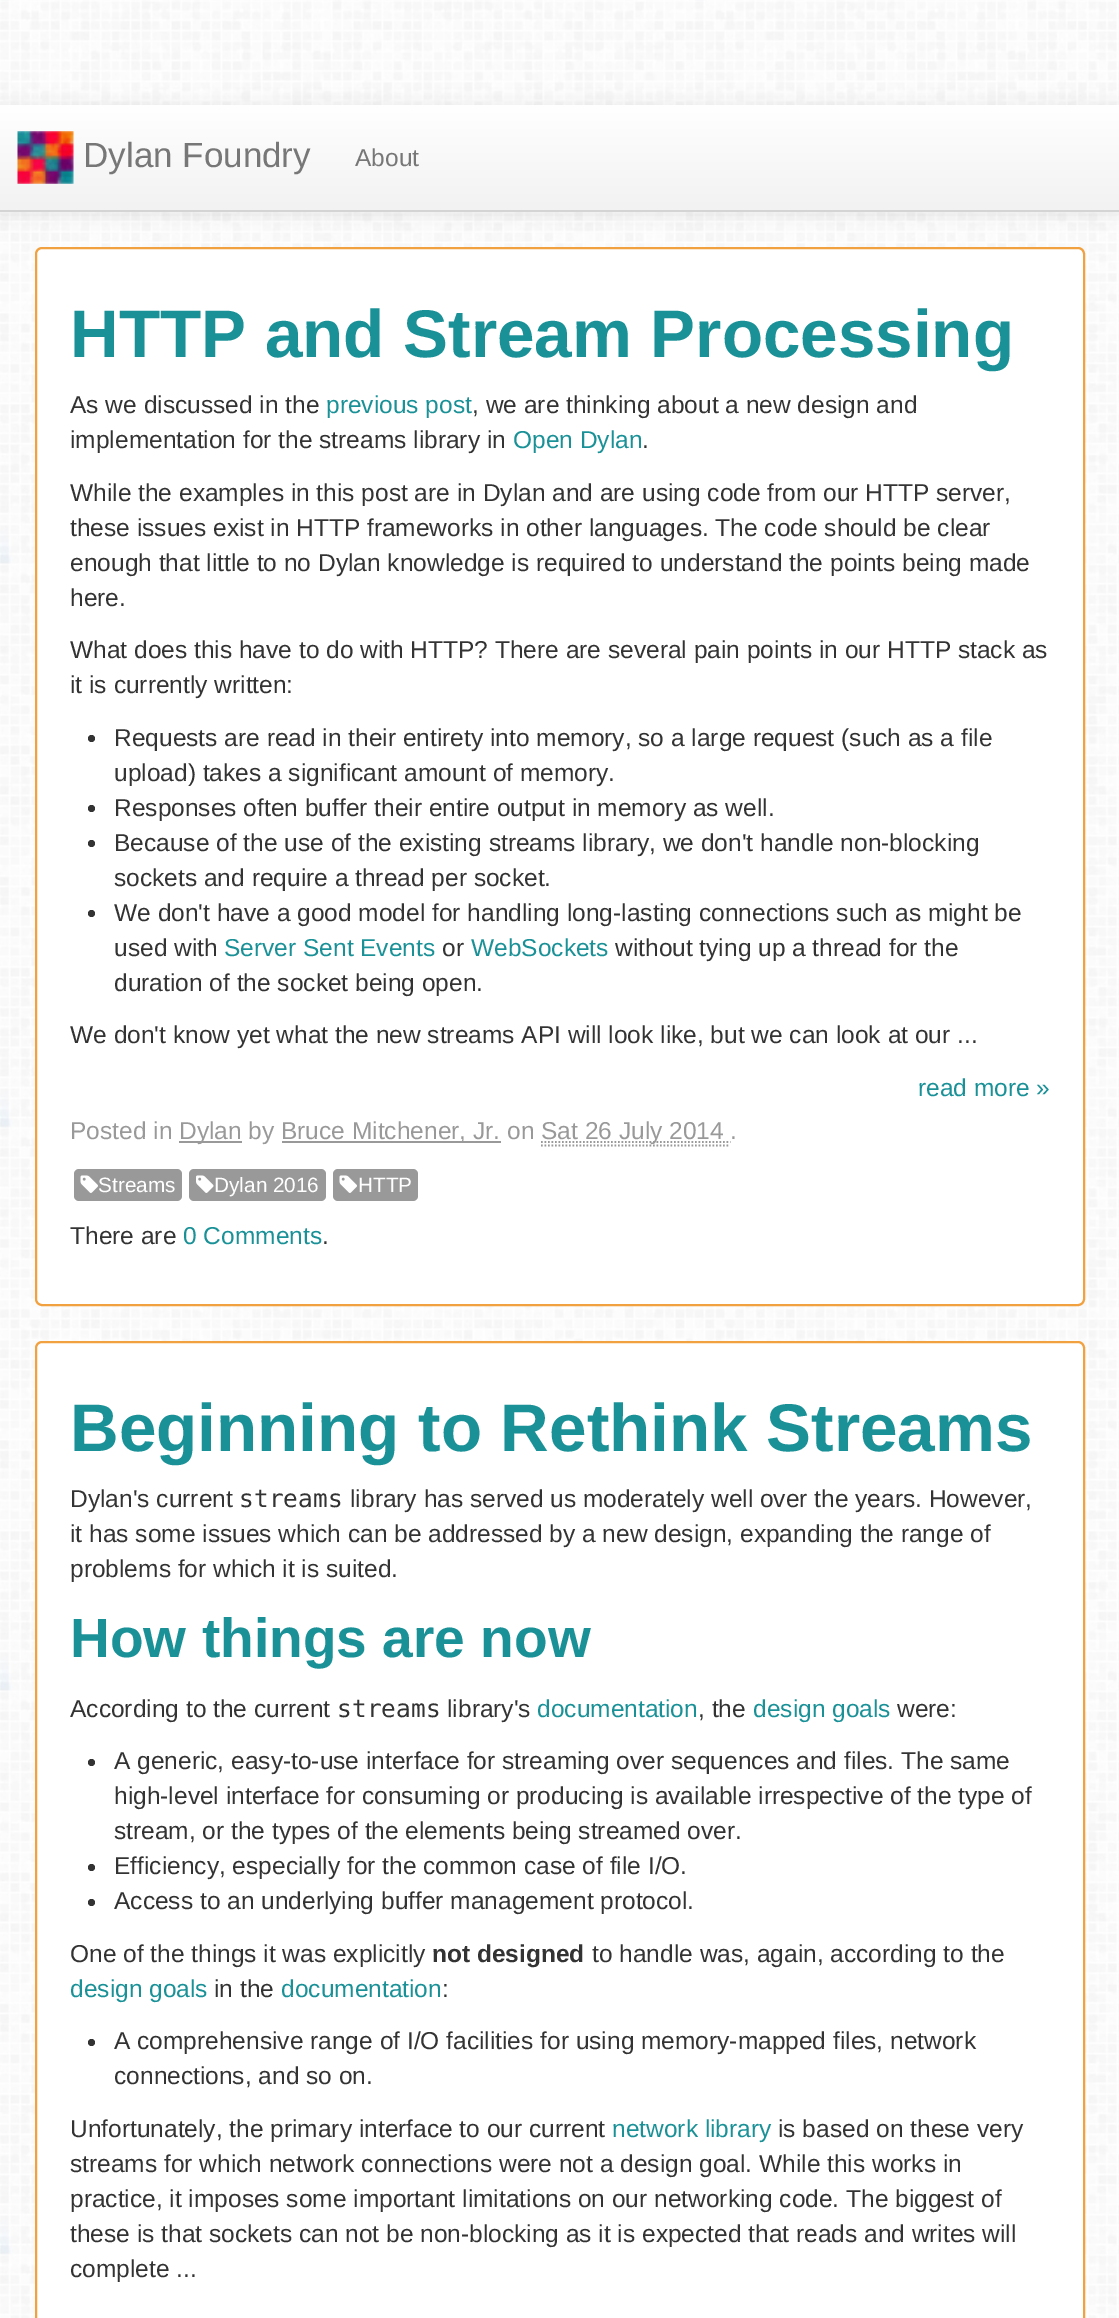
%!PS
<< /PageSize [1119 2318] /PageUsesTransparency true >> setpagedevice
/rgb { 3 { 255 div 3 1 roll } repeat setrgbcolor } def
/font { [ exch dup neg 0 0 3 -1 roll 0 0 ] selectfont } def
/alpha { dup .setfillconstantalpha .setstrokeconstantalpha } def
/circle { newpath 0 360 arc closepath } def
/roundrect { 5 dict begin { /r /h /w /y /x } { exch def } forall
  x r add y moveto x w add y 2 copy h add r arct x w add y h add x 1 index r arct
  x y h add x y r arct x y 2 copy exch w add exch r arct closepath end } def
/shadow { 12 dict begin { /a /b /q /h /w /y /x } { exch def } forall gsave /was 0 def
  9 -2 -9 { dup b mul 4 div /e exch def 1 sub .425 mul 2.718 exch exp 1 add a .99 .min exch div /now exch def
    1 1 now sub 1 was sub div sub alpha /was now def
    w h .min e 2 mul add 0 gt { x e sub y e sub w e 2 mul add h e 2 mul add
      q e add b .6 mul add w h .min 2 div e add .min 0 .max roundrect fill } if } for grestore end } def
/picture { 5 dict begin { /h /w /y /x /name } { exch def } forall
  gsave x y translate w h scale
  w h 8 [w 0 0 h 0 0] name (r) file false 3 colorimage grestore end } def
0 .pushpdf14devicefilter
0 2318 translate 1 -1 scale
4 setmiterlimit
255 255 255 rgb
0 0 1119 2318 rectfill
(img/1.rgb) 0 0 1119 2318 picture
0 0 0 rgb
0 107 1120 107 0 9 0.1 shadow
gsave 0 105 moveto 1119 105 lineto 1119 210 lineto 0 210 lineto closepath clip newpath
<< /ShadingType 2 /ColorSpace /DeviceRGB /Coords [560 105 560 210] /Extend [true true] /Function << /FunctionType 2 /Domain [0 1] /C0 [1 1 1] /C1 [0.949 0.949 0.949] /N 1 >> >> shfill grestore
212 212 212 rgb
0 210 1119 2 rectfill
(img/2.rgb) 17 131 57 53 picture
255 255 255 rgb
36 248 1048 1057 6 roundrect gsave fill grestore
242 161 64 rgb
2 setlinewidth
stroke
51 51 51 rgb
91.5 738.5 3.5 circle fill
91.5 808.5 3.5 circle fill
91.5 843.5 3.5 circle fill
91.5 913.5 3.5 circle fill
153 153 153 rgb
179 1141 63 2 rectfill
282 1141 219 2 rectfill
1.8 setlinewidth
[1.75 1.75] 0 setdash
541 1145.5 moveto 730 1145.5 lineto stroke
541 1142 moveto 730.5 1142 lineto stroke
74 1169 108 32 5 roundrect fill
(img/3.rgb) 80 1175 18 18 picture
189 1169 137 32 5 roundrect fill
(img/4.rgb) 196 1175 18 18 picture
333 1169 85 32 5 roundrect fill
(img/3.rgb) 339 1175 18 18 picture
255 255 255 rgb
36 1342 1048 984 6 roundrect gsave fill grestore
242 161 64 rgb
2 setlinewidth
[] 0 setdash
stroke
51 51 51 rgb
91.5 1762.5 3.5 circle fill
91.5 1867.5 3.5 circle fill
91.5 1902.5 3.5 circle fill
91.5 2042.5 3.5 circle fill
/LiberationSans-Regular 35 font
119 119 119 rgb
83 167 moveto (Dylan Foundry) show
/LiberationSans-Regular 24.5 font
355 166 moveto (About) show
/LiberationSans-Bold 67.4 font
26 145 151 rgb
70 357 moveto (HTTP and Stream Processing) show
/LiberationSans-Regular 24.5 font
51 51 51 rgb
70 413 moveto (As we discussed in the) show
26 145 151 rgb
326 413 moveto (previous post) show
51 51 51 rgb
472 413 moveto (, we are thinking about a new design and) show
70 448 moveto (implementation for the streams library in) show
26 145 151 rgb
513 448 moveto (Open Dylan) show
51 51 51 rgb
[
  [(.) 642 448]
  [(While the examples in this post are in Dylan and are using code from our HTTP server,) 70 501]
  [(these issues exist in HTTP frameworks in other languages. The code should be clear) 70 536]
  [(enough that little to no Dylan knowledge is required to understand the points being made) 70 571]
  [(here.) 70 606]
  [(What does this have to do with HTTP? There are several pain points in our HTTP stack as) 70 658]
  [(it is currently written:) 70 693]
  [(Requests are read in their entirety into memory, so a large request \(such as a file) 114 746]
  [(upload\) takes a significant amount of memory.) 114 781]
  [(Responses often buffer their entire output in memory as well.) 114 816]
  [(Because of the use of the existing streams library, we don't handle non-blocking) 114 851]
  [(sockets and require a thread per socket.) 114 886]
  [(We don't have a good model for handling long-lasting connections such as might be) 114 921]
  [(used with) 114 956]
] { aload pop moveto show } forall
26 145 151 rgb
224 956 moveto (Server Sent Events) show
51 51 51 rgb
442 956 moveto (or) show
26 145 151 rgb
471 956 moveto (WebSockets) show
51 51 51 rgb
[
  [(without tying up a thread for the) 615 956]
  [(duration of the socket being open.) 114 991]
  [(We don't know yet what the new streams API will look like, but we can look at our ...) 70 1043]
] { aload pop moveto show } forall
26 145 151 rgb
918 1096 moveto (read more ») show
153 153 153 rgb
[
  [(Posted in) 70 1139]
  [(Dylan by) 179 1139]
  [(Bruce Mitchener, Jr. on) 281 1139]
  [(Sat 26 July 2014 .) 541 1139]
] { aload pop moveto show } forall
/LiberationSans-Regular 20.75 font
255 255 255 rgb
[
  [(Streams) 98 1192]
  [(Dylan 2016) 214 1192]
  [(HTTP) 358 1192]
] { aload pop moveto show } forall
/LiberationSans-Regular 24.5 font
51 51 51 rgb
70 1244 moveto (There are) show
26 145 151 rgb
183 1244 moveto (0 Comments) show
51 51 51 rgb
322 1244 moveto (.) show
/LiberationSans-Bold 67.4 font
26 145 151 rgb
70 1451 moveto (Beginning to Rethink Streams) show
/LiberationSans-Regular 24.5 font
51 51 51 rgb
70 1507 moveto (Dylan's current) show
/DejaVuSansMono-Regular 24.5 font
239 1507 moveto (streams) show
/LiberationSans-Regular 24.5 font
[
  [(library has served us moderately well over the years. However,) 350 1507]
  [(it has some issues which can be addressed by a new design, expanding the range of) 70 1542]
  [(problems for which it is suited.) 70 1577]
] { aload pop moveto show } forall
/LiberationSans-Bold 55.1 font
26 145 151 rgb
70 1657 moveto (How things are now) show
/LiberationSans-Regular 24.5 font
51 51 51 rgb
70 1717 moveto (According to the current) show
/DejaVuSansMono-Regular 24.5 font
337 1717 moveto (streams) show
/LiberationSans-Regular 24.5 font
447 1717 moveto (library's) show
26 145 151 rgb
537 1717 moveto (documentation) show
51 51 51 rgb
698 1717 moveto (, the) show
26 145 151 rgb
753 1717 moveto (design goals) show
51 51 51 rgb
[
  [(were:) 897 1717]
  [(A generic, easy-to-use interface for streaming over sequences and files. The same) 114 1769]
  [(high-level interface for consuming or producing is available irrespective of the type of) 114 1804]
  [(stream, or the types of the elements being streamed over.) 114 1839]
  [(Efficiency, especially for the common case of file I/O.) 114 1874]
  [(Access to an underlying buffer management protocol.) 114 1909]
  [(One of the things it was explicitly) 70 1962]
] { aload pop moveto show } forall
/LiberationSans-Bold 24.5 font
432 1962 moveto (not designed) show
/LiberationSans-Regular 24.5 font
592 1962 moveto (to handle was, again, according to the) show
26 145 151 rgb
70 1997 moveto (design goals) show
51 51 51 rgb
214 1997 moveto (in the) show
26 145 151 rgb
281 1997 moveto (documentation) show
51 51 51 rgb
[
  [(:) 442 1997]
  [(A comprehensive range of I/O facilities for using memory-mapped files, network) 114 2049]
  [(connections, and so on.) 114 2084]
  [(Unfortunately, the primary interface to our current) 70 2137]
] { aload pop moveto show } forall
26 145 151 rgb
612 2137 moveto (network library) show
51 51 51 rgb
[
  [(is based on these very) 778 2137]
  [(streams for which network connections were not a design goal. While this works in) 70 2172]
  [(practice, it imposes some important limitations on our networking code. The biggest of) 70 2207]
  [(these is that sockets can not be non-blocking as it is expected that reads and writes will) 70 2242]
  [(complete ...) 70 2277]
] { aload pop moveto show } forall
.poppdf14devicefilter showpage
